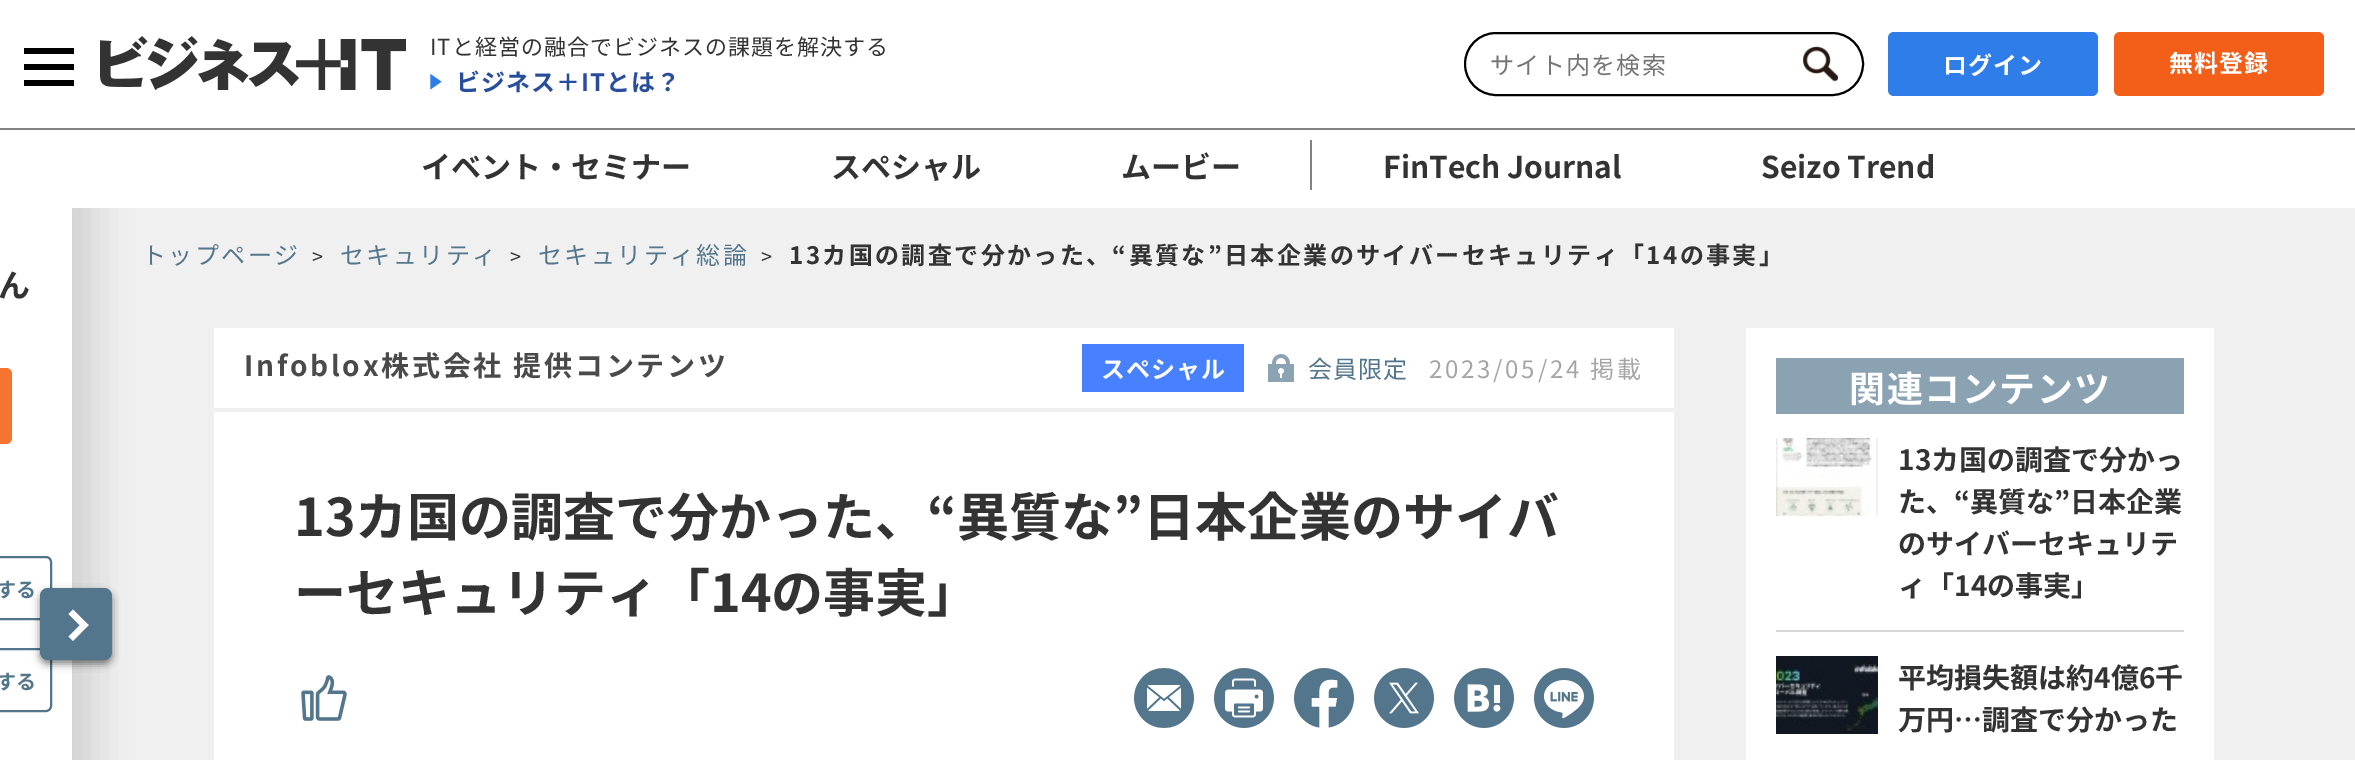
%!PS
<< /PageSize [2355 760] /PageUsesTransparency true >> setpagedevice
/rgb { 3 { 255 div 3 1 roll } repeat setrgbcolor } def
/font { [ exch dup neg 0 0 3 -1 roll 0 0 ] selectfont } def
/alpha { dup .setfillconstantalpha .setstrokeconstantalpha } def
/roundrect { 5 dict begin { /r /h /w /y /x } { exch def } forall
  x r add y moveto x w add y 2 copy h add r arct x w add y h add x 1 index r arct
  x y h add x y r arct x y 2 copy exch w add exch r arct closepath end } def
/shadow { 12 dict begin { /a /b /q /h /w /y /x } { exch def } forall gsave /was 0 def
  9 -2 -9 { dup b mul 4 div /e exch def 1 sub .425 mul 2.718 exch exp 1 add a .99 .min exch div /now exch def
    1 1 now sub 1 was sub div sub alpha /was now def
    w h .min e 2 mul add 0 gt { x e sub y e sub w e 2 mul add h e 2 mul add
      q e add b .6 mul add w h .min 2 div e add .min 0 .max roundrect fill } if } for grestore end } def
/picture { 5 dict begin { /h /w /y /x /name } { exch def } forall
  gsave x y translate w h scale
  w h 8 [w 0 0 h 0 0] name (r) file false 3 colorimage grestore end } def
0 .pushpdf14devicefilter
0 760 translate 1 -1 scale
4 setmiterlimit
240 240 240 rgb
0 0 2355 760 rectfill
[
  [0 0 2355 128 255 255 255]
  [24 48 50 6 0 0 0]
  [24 64 50 6 0 0 0]
  [24 80 50 6 0 0 0]
] { aload pop rgb rectfill } forall
(img/1.rgb) 100 36 306 54 picture
(img/2.rgb) 430 73 12 17 picture
2 setlinewidth
1465 33 398 62 31 roundrect stroke
(img/3.rgb) 1802 46 36 36 picture
46 125 232 rgb
1888 32 210 64 6 roundrect fill
243 95 24 rgb
2114 32 210 64 6 roundrect fill
0 0 0 rgb
-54 188 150 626 0 18 0.12 shadow
[
  [0 130 2355 78 255 255 255]
  [0 128 2355 2 130 130 130]
  [1310 140 2 50 130 130 130]
  [0 208 72 552 255 255 255]
] { aload pop rgb rectfill } forall
245 117 48 rgb
-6 368 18 76 6 roundrect fill
83 118 140 rgb
-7 557 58 62 5 roundrect stroke
-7 649 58 62 5 roundrect stroke
0 0 0 rgb
40 592 72 72 8 4 0.5 shadow
83 118 140 rgb
40 588 72 72 8 roundrect fill
255 255 255 rgb
73 609.5 moveto 88.5 625 lineto 84 629.5 lineto 68.5 614 lineto closepath fill
84 621 moveto 88.5 625 lineto 73 641 lineto 68.5 636.5 lineto closepath fill
[
  [214 328 1460 432 255 255 255]
  [214 408 1460 4 240 240 240]
  [1082 344 162 48 72 129 255]
] { aload pop rgb rectfill } forall
(img/4.rgb) 1268 354 26 28 picture
(img/5.rgb) 301 675 46 46 picture
(img/6.rgb) 1134 668 60 60 picture
(img/7.rgb) 1214 668 60 60 picture
(img/8.rgb) 1294 668 60 60 picture
(img/9.rgb) 1374 668 60 60 picture
(img/10.rgb) 1454 668 60 60 picture
(img/11.rgb) 1534 668 60 60 picture
[
  [1746 328 468 432 255 255 255]
  [1776 358 408 56 138 162 177]
  [1776 630 408 2 216 216 216]
] { aload pop rgb rectfill } forall
(img/12.rgb) 1776 438 102 78 picture
(img/13.rgb) 1776 656 102 78 picture
/NotoSansCJKJP-Regular 22 font
51 51 51 rgb
430 55 moveto 1 0 (ITと経営の融合でビジネスの課題を解決する) ashow
/NotoSansCJKJP-Bold 24 font
39 77 156 rgb
456 91 moveto 1 0 (ビジネス＋ITとは？) ashow
/NotoSansCJKJP-Regular 24 font
117 117 117 rgb
1490 74 moveto 1.25 0 (サイト内を検索) ashow
/NotoSansCJKJP-Bold 24 font
255 255 255 rgb
1943 74 moveto 1 0 (ログイン) ashow
2169 72 moveto 1 0 (無料登録) ashow
/NotoSansCJKJP-Bold 30 font
51 51 51 rgb
[
  [(イベント・セミナー) 421 178]
  [(スペシャル) 831 178]
  [(ムービー) 1121 178]
  [(FinTech Journal) 1383 178]
  [(Seizo Trend) 1761 178]
] { aload pop moveto show } forall
/NotoSansCJKJP-Bold 32 font
-2 297 moveto 1 0 (ん) ashow
/NotoSansCJKJP-Bold 20 font
83 118 140 rgb
-4 597 moveto (する) show
-4 689 moveto (する) show
/NotoSansCJKJP-Regular 24 font
142 264 moveto 2.4 0 (トップページ) ashow
/NotoSansCJKJP-Regular 20 font
51 51 51 rgb
312 264 moveto (>) show
/NotoSansCJKJP-Regular 24 font
83 118 140 rgb
340 264 moveto 2.4 0 (セキュリティ) ashow
/NotoSansCJKJP-Regular 20 font
51 51 51 rgb
510 264 moveto (>) show
/NotoSansCJKJP-Regular 24 font
83 118 140 rgb
538 264 moveto 2.4 0 (セキュリティ総論) ashow
/NotoSansCJKJP-Regular 20 font
51 51 51 rgb
761 264 moveto (>) show
/NotoSansCJKJP-Bold 24 font
789 264 moveto 2.4 0 (13カ国の調査で分かった、“異質な”日本企業のサイバーセキュリティ「14の事実」) ashow
/NotoSansCJKJP-Bold 28 font
74 74 74 rgb
244 376 moveto 2.75 0 (Infoblox株式会社 提供コンテンツ) ashow
/NotoSansCJKJP-Bold 24 font
255 255 255 rgb
1101 378 moveto 1 0 (スペシャル) ashow
/NotoSansCJKJP-Regular 24 font
83 118 140 rgb
1308 378 moveto 1 0 (会員限定) ashow
165 165 165 rgb
1429 378 moveto 2.75 0 (2023/05/24 掲載) ashow
/NotoSansCJKJP-Bold 52 font
51 51 51 rgb
294 536 moveto (13カ国の調査で分かった、“異質な”日本企業のサイバ) show
294 612 moveto (ーセキュリティ「14の事実」) show
/NotoSansCJKJP-Bold 36 font
255 255 255 rgb
1849 402 moveto 1.5 0 (関連コンテンツ) ashow
/NotoSansCJKJP-Bold 28 font
51 51 51 rgb
[
  [(13カ国の調査で分かっ) 1898 470]
  [(た、“異質な”日本企業) 1898 512]
  [(のサイバーセキュリテ) 1898 554]
  [(ィ「14の事実」) 1898 596]
  [(平均損失額は約4億6千) 1898 688]
  [(万円…調査で分かった) 1898 730]
] { aload pop moveto show } forall
.poppdf14devicefilter showpage
